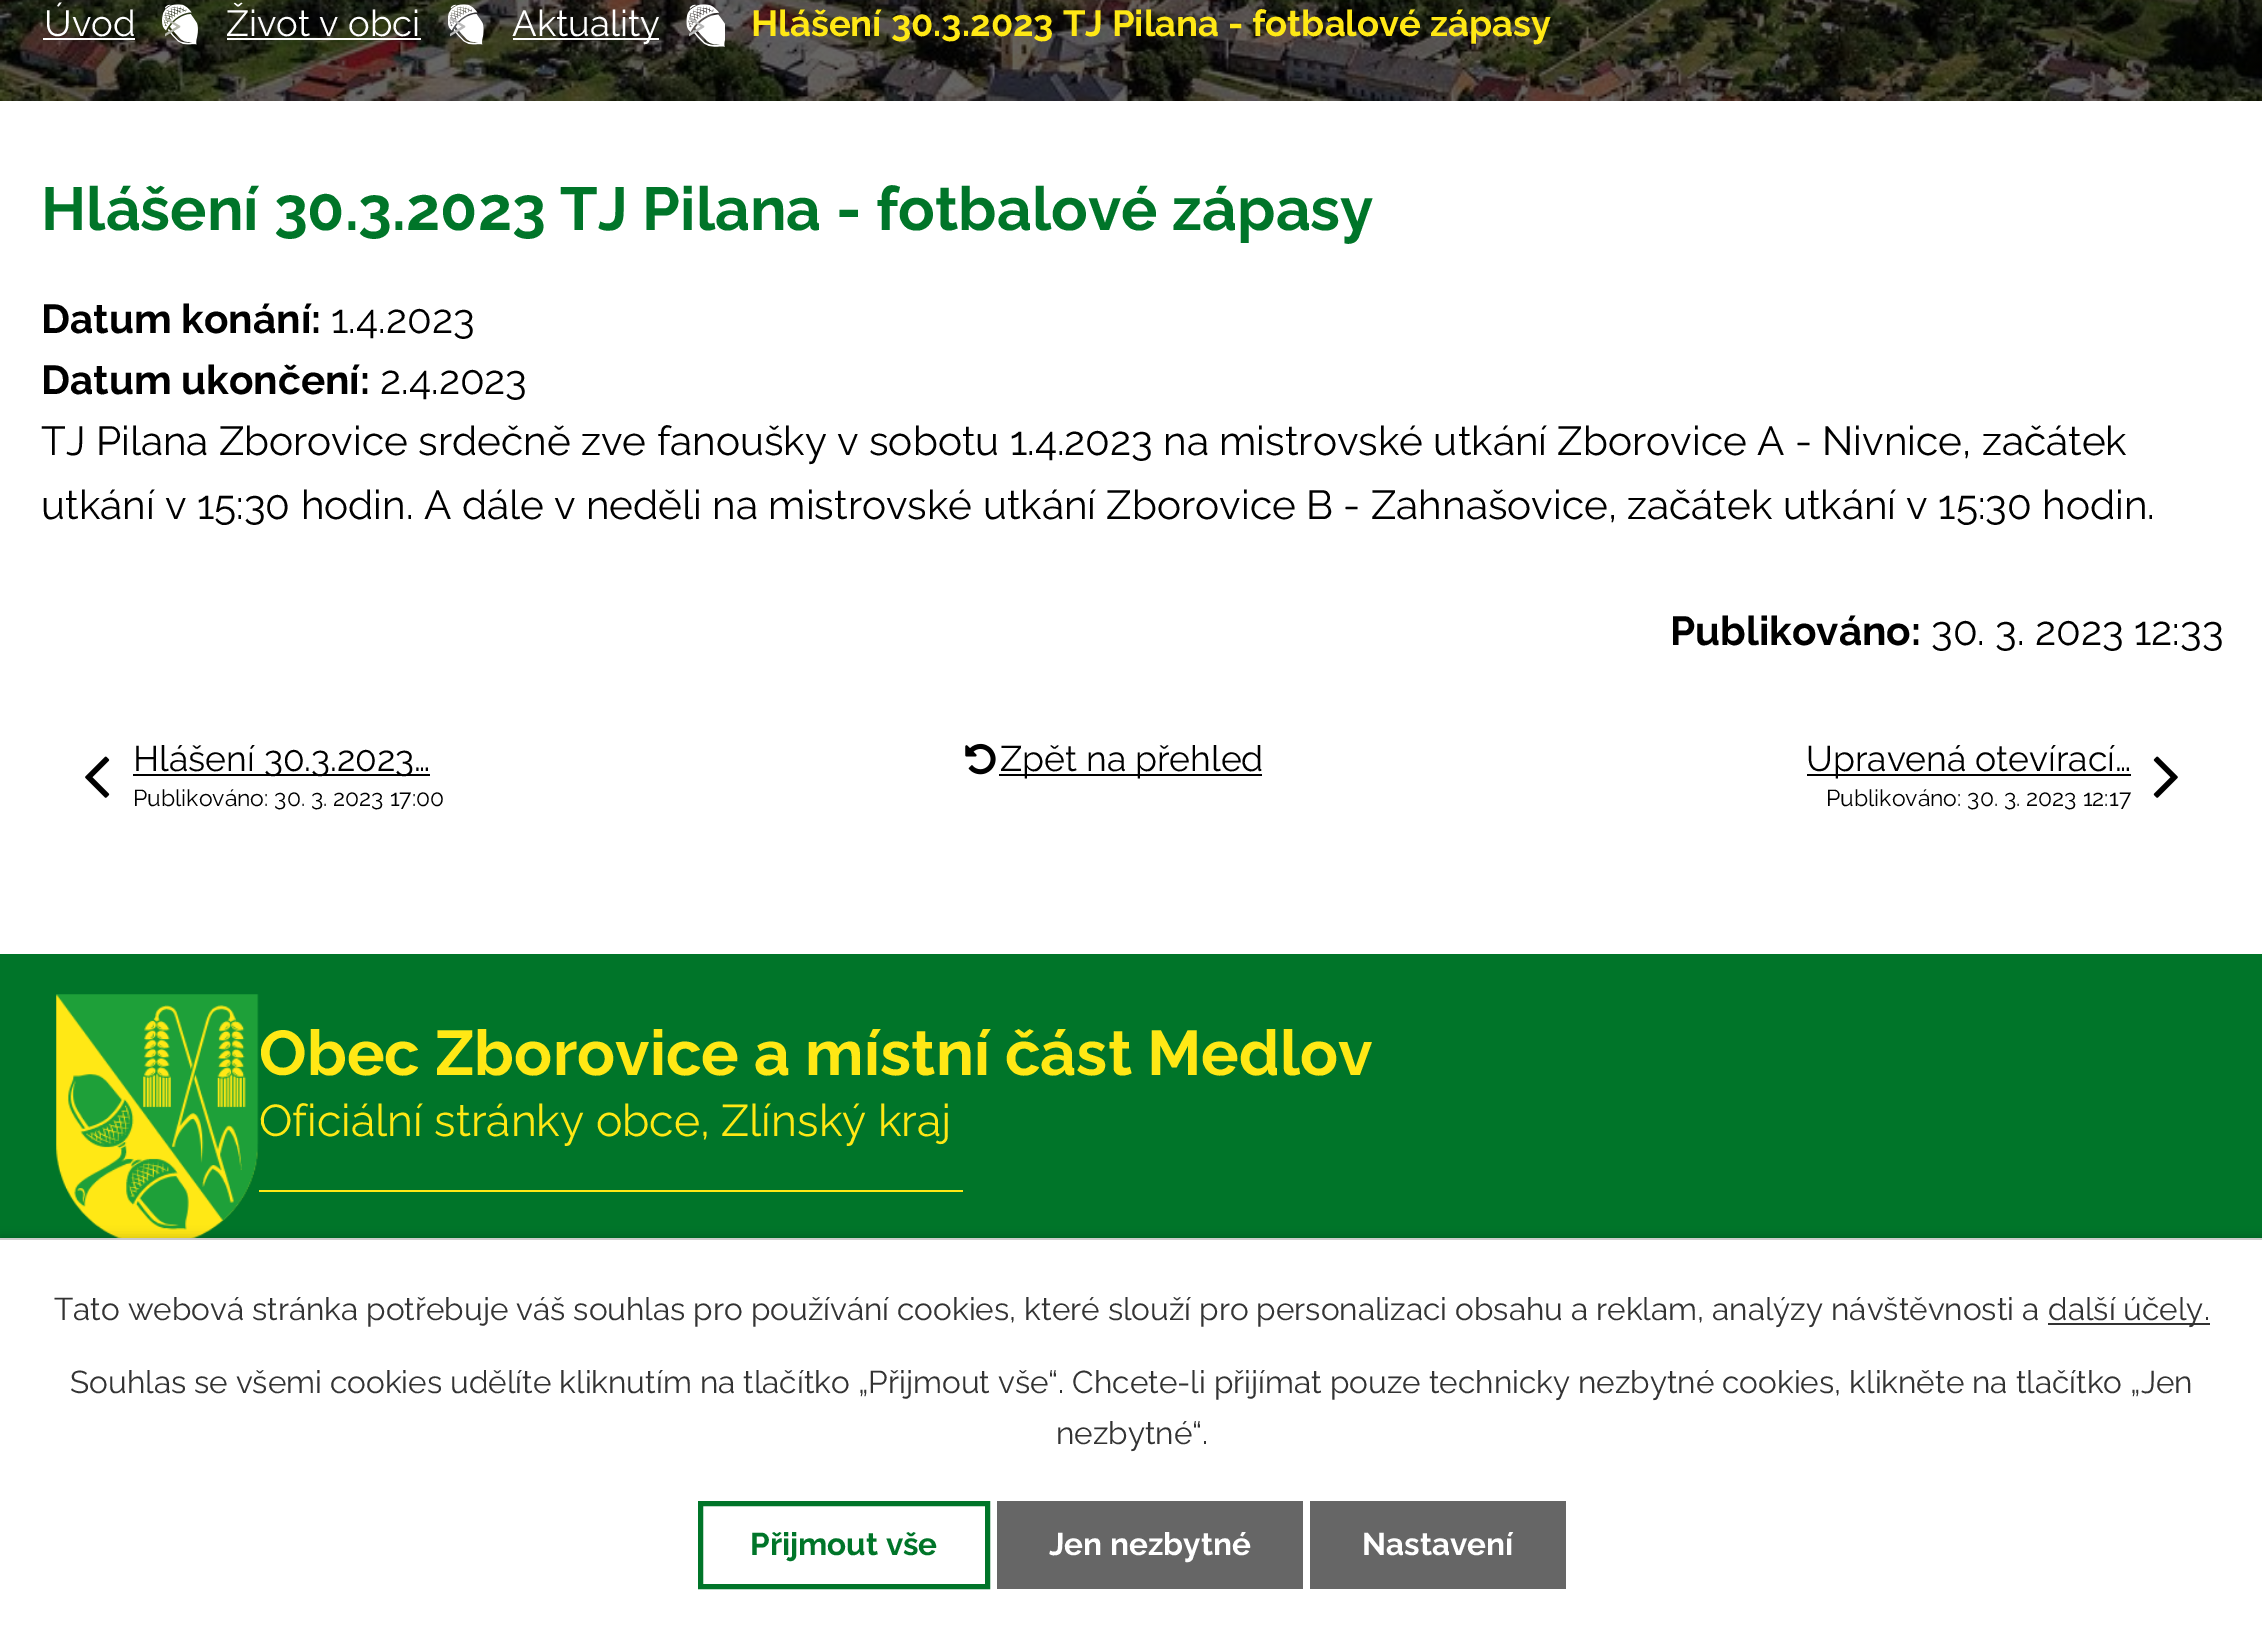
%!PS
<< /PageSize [2262 1630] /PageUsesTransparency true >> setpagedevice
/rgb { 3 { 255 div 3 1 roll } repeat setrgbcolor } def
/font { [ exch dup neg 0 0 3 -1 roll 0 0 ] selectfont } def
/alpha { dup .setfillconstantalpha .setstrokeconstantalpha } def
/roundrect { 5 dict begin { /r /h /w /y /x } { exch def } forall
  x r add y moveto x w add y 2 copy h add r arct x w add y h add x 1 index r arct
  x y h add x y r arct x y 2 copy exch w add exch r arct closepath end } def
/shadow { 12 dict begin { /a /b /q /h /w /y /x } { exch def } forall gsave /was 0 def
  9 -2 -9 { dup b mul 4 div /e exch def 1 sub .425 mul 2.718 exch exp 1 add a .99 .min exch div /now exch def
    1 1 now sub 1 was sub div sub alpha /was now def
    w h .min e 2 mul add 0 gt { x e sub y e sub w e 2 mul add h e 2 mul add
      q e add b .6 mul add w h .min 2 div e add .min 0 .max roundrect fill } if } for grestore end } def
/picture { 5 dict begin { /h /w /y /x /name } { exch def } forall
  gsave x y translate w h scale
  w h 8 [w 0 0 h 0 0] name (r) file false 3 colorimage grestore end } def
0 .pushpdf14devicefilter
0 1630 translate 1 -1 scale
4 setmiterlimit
255 255 255 rgb
0 0 2262 1630 rectfill
(img/1.rgb) 0 0 2262 101 picture
43 38 92 2 rectfill
(img/2.rgb) 162 4 36 41 picture
227 38 194 2 rectfill
(img/3.rgb) 448 4 36 41 picture
513 38 146 2 rectfill
(img/4.rgb) 686 4 39 43 picture
(img/5.rgb) 85 756 25 42 picture
0 0 0 rgb
133 774 297 2 rectfill
(img/6.rgb) 965 743 31 32 picture
999 774 263 2 rectfill
1807 774 324 2 rectfill
(img/7.rgb) 2153 756 25 42 picture
0 117 41 rgb
0 954 2262 284 rectfill
(img/8.rgb) 56 994 203 244 picture
255 232 21 rgb
259 1190 704 2 rectfill
0 0 0 rgb
0 1238 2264 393 0 5.5 0.2 shadow
[
  [0 1240 2262 390 255 255 255]
  [0 1238 2262 2 204 204 204]
  [2048 1323 162 2 51 51 51]
] { aload pop rgb rectfill } forall
0 117 41 rgb
5 setlinewidth
700.5 1503.5 287 83 rectstroke
102 102 102 rgb
997 1501 306 88 rectfill
1310 1501 256 88 rectfill
/Raleway-Regular 36.45 font
255 255 255 rgb
44 36 moveto (Úvod) show
181 183 171 rgb
163 36 moveto (>) show
255 255 255 rgb
226 36 moveto (Život v obci) show
185 185 185 rgb
448 36 moveto (>) show
255 255 255 rgb
512 36 moveto (Aktuality) show
185 185 185 rgb
687 36 moveto (>) show
/Raleway-Bold 36.45 font
255 232 21 rgb
751 36 moveto (Hlášení 30.3.2023 TJ Pilana - fotbalové zápasy) show
/Raleway-Bold 60.75 font
0 117 41 rgb
41 230 moveto (Hlášení 30.3.2023 TJ Pilana - fotbalové zápasy) show
/Raleway-Bold 40.5 font
0 0 0 rgb
41 333 moveto (Datum konání:) show
/Raleway-Regular 40.5 font
331 333 moveto (1.4.2023) show
/Raleway-Bold 40.5 font
41 394 moveto (Datum ukončení:) show
/Raleway-Regular 40.5 font
[
  [(2.4.2023) 380 394]
  [(TJ Pilana Zborovice srdečně zve fanoušky v sobotu 1.4.2023 na mistrovské utkání Zborovice A - Nivnice, začátek) 41 455]
  [(utkání v 15:30 hodin. A dále v neděli na mistrovské utkání Zborovice B - Zahnašovice, začátek utkání v 15:30 hodin.) 41 519]
] { aload pop moveto show } forall
/Raleway-Bold 40.5 font
1670 645 moveto (Publikováno:) show
/Raleway-Regular 40.5 font
1931 645 moveto (30. 3. 2023 12:33) show
/Raleway-Regular 35.5 font
133 771 moveto (Hlášení 30.3.2023…) show
/Raleway-Regular 23 font
133 806 moveto (Publikováno: 30. 3. 2023 17:00) show
/Raleway-Regular 35.5 font
1000 771 moveto (Zpět na přehled) show
1806 771 moveto (Upravená otevírací…) show
/Raleway-Regular 23 font
1826 806 moveto (Publikováno: 30. 3. 2023 12:17) show
/Raleway-Bold 63 font
255 232 21 rgb
259 1075 moveto (Obec Zborovice a místní část Medlov) show
/Raleway-Regular 44.5 font
259 1136 moveto (Oficiální stránky obce, Zlínský kraj) show
/Raleway-Regular 31.5 font
51 51 51 rgb
[
  [(Tato webová stránka potřebuje váš souhlas pro používání cookies, které slouží pro personalizaci obsahu a reklam, analýzy návštěvnosti a) 54 1320]
  [(další účely.) 2048 1320]
  [(Souhlas se všemi cookies udělíte kliknutím na tlačítko „Přijmout vše“. Chcete-li přijímat pouze technicky nezbytné cookies, klikněte na tlačítko „Jen) 70 1393]
  [(nezbytné“.) 1056 1444]
] { aload pop moveto show } forall
/Raleway-Bold 31.5 font
0 117 41 rgb
750 1555 moveto (Přijmout vše) show
255 255 255 rgb
1049 1555 moveto (Jen nezbytné) show
1362 1555 moveto (Nastavení) show
.poppdf14devicefilter showpage
